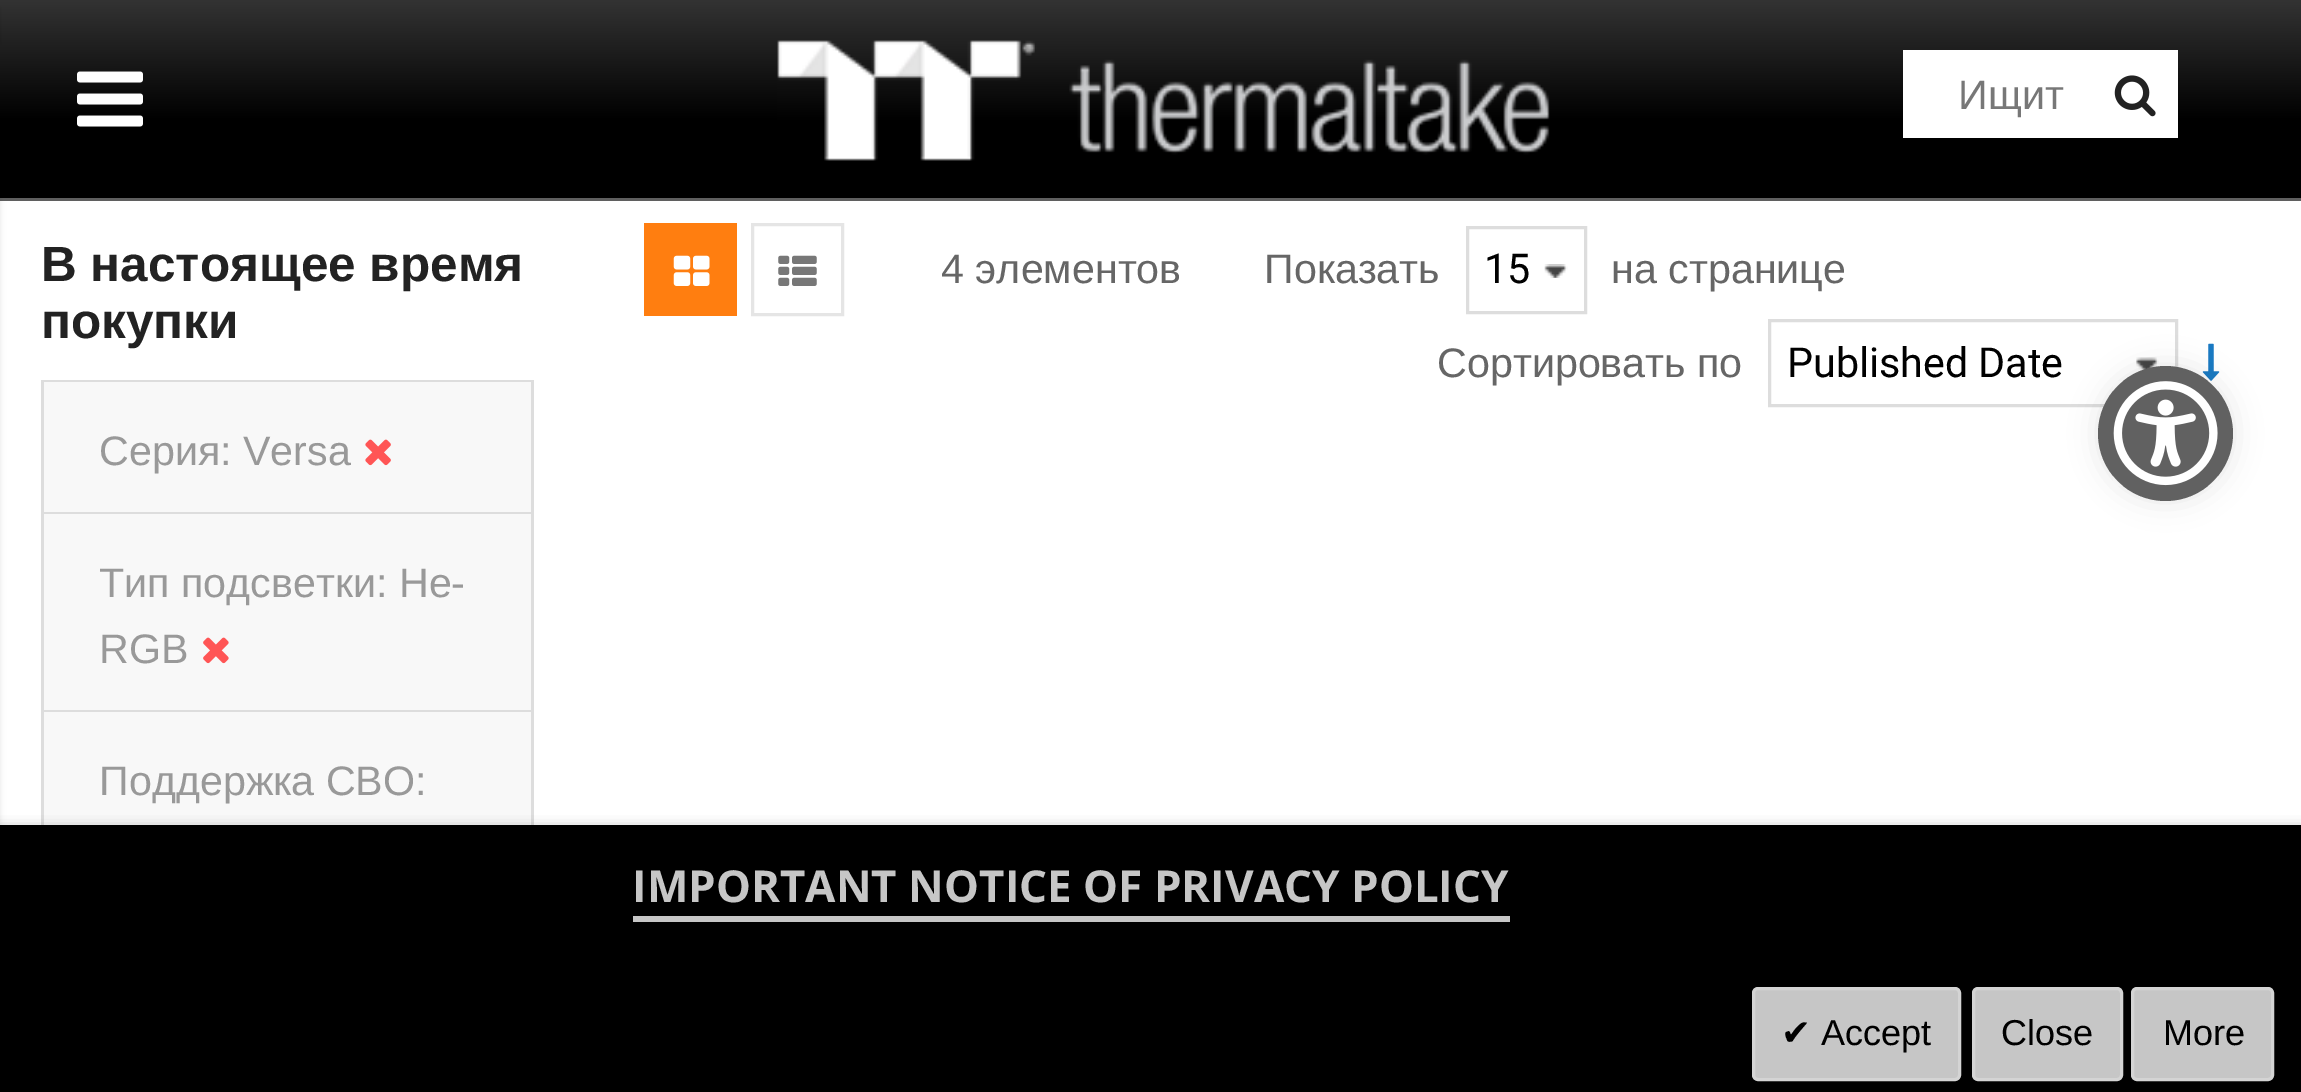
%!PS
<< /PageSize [2301 1092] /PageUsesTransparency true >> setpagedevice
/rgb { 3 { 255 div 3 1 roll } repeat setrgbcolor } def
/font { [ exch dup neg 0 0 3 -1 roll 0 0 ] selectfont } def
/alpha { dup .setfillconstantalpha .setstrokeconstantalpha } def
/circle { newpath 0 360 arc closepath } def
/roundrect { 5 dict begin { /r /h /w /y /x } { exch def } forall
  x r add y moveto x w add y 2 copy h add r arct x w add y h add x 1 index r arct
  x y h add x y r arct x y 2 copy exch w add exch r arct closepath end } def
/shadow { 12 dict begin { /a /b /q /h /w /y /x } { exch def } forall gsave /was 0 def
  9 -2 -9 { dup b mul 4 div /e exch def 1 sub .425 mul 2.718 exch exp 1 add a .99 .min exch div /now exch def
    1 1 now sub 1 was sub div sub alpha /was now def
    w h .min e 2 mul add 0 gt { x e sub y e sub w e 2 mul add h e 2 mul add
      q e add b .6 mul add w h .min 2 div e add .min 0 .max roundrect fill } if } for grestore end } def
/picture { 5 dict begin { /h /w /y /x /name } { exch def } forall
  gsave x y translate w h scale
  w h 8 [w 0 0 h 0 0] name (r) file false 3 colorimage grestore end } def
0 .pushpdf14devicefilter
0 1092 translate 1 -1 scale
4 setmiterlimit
255 255 255 rgb
0 0 2301 1092 rectfill
gsave 0 0 moveto 2301 0 lineto 2301 198 lineto 0 198 lineto closepath clip newpath
<< /ShadingType 2 /ColorSpace /DeviceRGB /Coords [1151 0 1151 198] /Extend [true true] /Function << /FunctionType 3 /Domain [0 1] /Functions [<< /FunctionType 2 /Domain [0 1] /C0 [0.2 0.2 0.2] /C1 [0 0 0] /N 1 >> << /FunctionType 2 /Domain [0 1] /C0 [0 0 0] /C1 [0 0 0] /N 1 >>] /Bounds [0.61] /Encode [0 1 0 1] >> >> shfill grestore
95 95 95 rgb
0 198 2301 3 rectfill
0 0 0 rgb
-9 8 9 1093 0 3 0.1 shadow
(img/1.rgb) 77 71 66 56 picture
(img/2.rgb) 777 40 773 121 picture
255 255 255 rgb
1903 50 275 88 rectfill
(img/3.rgb) 2114 75 42 42 picture
[
  [41 380 493 2 221 221 221]
  [531 380 3 445 221 221 221]
  [41 380 3 445 221 221 221]
  [44 382 487 130 248 248 248]
  [44 512 487 2 221 221 221]
] { aload pop rgb rectfill } forall
(img/4.rgb) 365 439 26 27 picture
248 248 248 rgb
44 514 487 196 rectfill
221 221 221 rgb
44 710 487 2 rectfill
(img/5.rgb) 203 637 26 27 picture
248 248 248 rgb
44 712 487 113 rectfill
255 126 16 rgb
644 223 93 93 rectfill
(img/6.rgb) 673 255 37 31 picture
229 229 229 rgb
3 setlinewidth
752.5 224.5 90 90 rectstroke
(img/7.rgb) 778 255 39 31 picture
(img/8.rgb) 1544 264 24 14 picture
221 221 221 rgb
1467.5 227.5 118 85 rectstroke
(img/9.rgb) 2136 357 23 14 picture
1769.5 320.5 407 85 rectstroke
(img/10.rgb) 2202 343 18 38 picture
0 0 0 rgb
0 831 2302 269 0 7 0.47 shadow
0 825 2301 267 rectfill
198 198 198 rgb
633 916 877 6 rectfill
1753.5 988.5 206 91 4.5 roundrect gsave fill grestore
212 212 212 rgb
stroke
198 198 198 rgb
1973.5 988.5 148 91 4.5 roundrect gsave fill grestore
212 212 212 rgb
stroke
198 198 198 rgb
2132.5 988.5 140 91 4.5 roundrect gsave fill grestore
212 212 212 rgb
stroke
0 0 0 rgb
2098 366 135 135 67.5 14 0.1 shadow
97 97 97 rgb
2165.5 433.5 67.5 circle fill
(img/11.rgb) 2113 381 105 105 picture
/LiberationSans-Regular 41.25 font
119 119 119 rgb
1958 109 moveto (Ищит) show
/LiberationSans-Bold 49.5 font
34 34 34 rgb
41 281 moveto (В настоящее время) show
41 338 moveto (покупки) show
/LiberationSans-Regular 41.25 font
153 153 153 rgb
[
  [(Серия: Versa) 99 465]
  [(Тип подсветки: Не-) 99 597]
  [(RGB) 99 663]
  [(Поддержка СВО:) 99 795]
] { aload pop moveto show } forall
102 102 102 rgb
941 283 moveto (4 элементов) show
1264 283 moveto (Показать) show
/Roboto-Regular 41.25 font
0 0 0 rgb
1484 283 moveto (15) show
/LiberationSans-Regular 41.25 font
102 102 102 rgb
1611 283 moveto (на странице) show
1437 377 moveto (Сортировать по) show
/Roboto-Regular 41.25 font
0 0 0 rgb
1787 377 moveto (Published Date) show
/OpenSans-Bold 44 font
198 198 198 rgb
632 902 moveto (IMPORTANT NOTICE OF PRIVACY POLICY) show
/DejaVuSans-Regular 36 font
0 0 0 rgb
1781 1045 moveto (✔) show
/LiberationSans-Regular 36 font
[
  [(Accept) 1821 1045]
  [(Close) 2001 1045]
  [(More) 2163 1045]
] { aload pop moveto show } forall
.poppdf14devicefilter showpage
